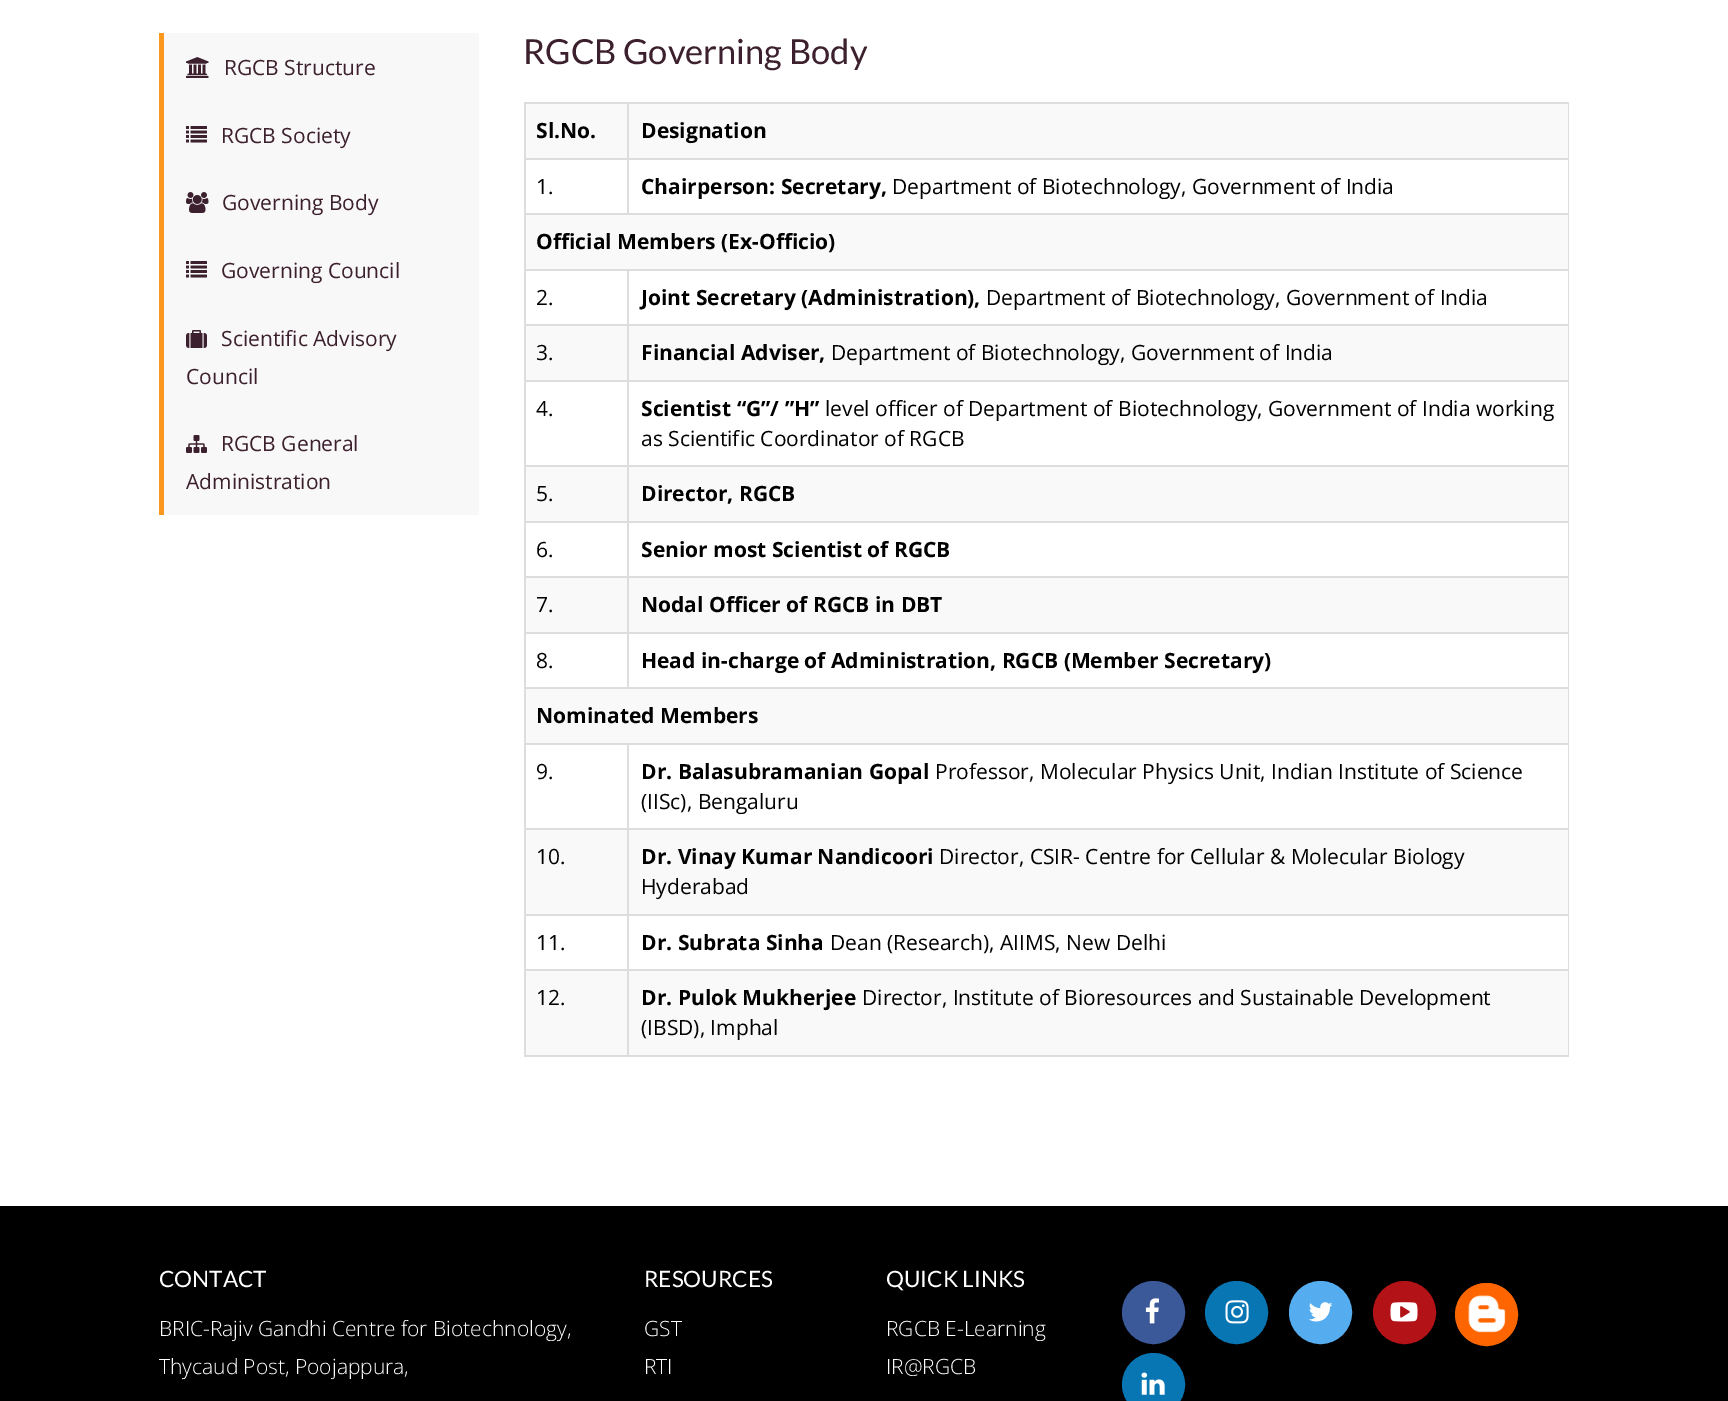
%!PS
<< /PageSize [1728 1401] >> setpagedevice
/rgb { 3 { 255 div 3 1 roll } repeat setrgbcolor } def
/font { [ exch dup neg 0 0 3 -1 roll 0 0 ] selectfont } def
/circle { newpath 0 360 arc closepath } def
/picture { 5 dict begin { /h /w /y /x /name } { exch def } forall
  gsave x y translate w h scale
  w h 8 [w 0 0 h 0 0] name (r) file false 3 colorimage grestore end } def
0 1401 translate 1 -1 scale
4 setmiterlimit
255 255 255 rgb
0 0 1728 1401 rectfill
248 248 248 rgb
164 33 315 482 rectfill
249 151 31 rgb
159 33 5 482 rectfill
(img/1.rgb) 186 57 23 21 picture
(img/2.rgb) 186 126 21 17 picture
(img/3.rgb) 186 192 23 21 picture
(img/2.rgb) 186 261 21 17 picture
(img/4.rgb) 186 330 21 18 picture
(img/5.rgb) 186 435 21 18 picture
[
  [524 102 1045 2 221 221 221]
  [1568 102 1 954 221 221 221]
  [524 1055 1045 2 221 221 221]
  [524 102 2 954 221 221 221]
  [526 104 1042 54 249 249 249]
  [627 158 942 2 221 221 221]
  [524 213 1045 2 221 221 221]
  [627 158 2 57 221 221 221]
  [524 158 105 2 221 221 221]
  [627 102 2 57 221 221 221]
  [526 215 1042 54 249 249 249]
  [627 269 942 2 221 221 221]
  [627 324 942 2 221 221 221]
  [526 326 1042 54 249 249 249]
  [627 380 942 2 221 221 221]
  [627 465 942 2 221 221 221]
  [526 467 1042 54 249 249 249]
  [627 521 942 2 221 221 221]
  [627 576 942 2 221 221 221]
  [526 578 1042 54 249 249 249]
  [627 632 942 2 221 221 221]
  [524 687 1045 2 221 221 221]
  [627 632 2 57 221 221 221]
  [524 632 105 2 221 221 221]
  [627 576 2 57 221 221 221]
  [524 576 105 2 221 221 221]
  [627 521 2 57 221 221 221]
  [524 521 105 2 221 221 221]
  [627 465 2 57 221 221 221]
  [524 465 105 2 221 221 221]
  [627 380 2 87 221 221 221]
  [524 380 105 2 221 221 221]
  [627 324 2 57 221 221 221]
  [524 324 105 2 221 221 221]
  [627 269 2 57 221 221 221]
  [524 269 105 2 221 221 221]
  [526 689 1042 54 249 249 249]
  [627 743 942 2 221 221 221]
  [627 828 942 2 221 221 221]
  [526 830 1042 84 249 249 249]
  [627 914 942 2 221 221 221]
  [627 969 942 2 221 221 221]
  [526 971 1042 84 249 249 249]
  [627 969 2 87 221 221 221]
  [524 969 105 2 221 221 221]
  [627 914 2 57 221 221 221]
  [524 914 105 2 221 221 221]
  [627 828 2 87 221 221 221]
  [524 828 105 2 221 221 221]
  [627 743 2 87 221 221 221]
  [524 743 105 2 221 221 221]
  [0 1206 1728 195 0 0 0]
] { aload pop rgb rectfill } forall
59 89 152 rgb
1153.5 1312.5 30.5 circle gsave fill grestore
2 setlinewidth
stroke
(img/6.rgb) 1145 1298 14 26 picture
9 118 180 rgb
1236.5 1312.5 30.5 circle gsave fill grestore
stroke
(img/7.rgb) 1225 1300 24 24 picture
85 172 238 rgb
1320.5 1312.5 30.5 circle gsave fill grestore
stroke
(img/8.rgb) 1309 1302 24 20 picture
179 18 23 rgb
1404.5 1312.5 30.5 circle gsave fill grestore
stroke
(img/9.rgb) 1390 1302 28 20 picture
247 102 1 rgb
1486.5 1314.5 30.5 circle gsave fill grestore
stroke
(img/10.rgb) 1457 1283 60 61 picture
9 118 180 rgb
1153.5 1384.5 30.5 circle gsave fill grestore
stroke
(img/11.rgb) 1141 1372 24 23 picture
/OpenSans-Regular 21 font
60 32 45 rgb
[
  [(RGCB Structure) 224 75]
  [(RGCB Society) 221 143]
  [(Governing Body) 222 210]
  [(Governing Council) 221 278]
  [(Scientific Advisory) 221 346]
  [(Council) 186 384]
  [(RGCB General) 221 451]
  [(Administration) 186 489]
] { aload pop moveto show } forall
/Lato-Regular 34.5 font
523 64 moveto (RGCB Governing Body) show
/OpenSans-Bold 21 font
0 0 0 rgb
536 138 moveto (Sl.No.) show
641 138 moveto (Designation) show
/OpenSans-Regular 21 font
536 194 moveto (1.) show
/OpenSans-Bold 21 font
641 194 moveto (Chairperson: Secretary,) show
/OpenSans-Regular 21 font
892 194 moveto (Department of Biotechnology, Government of India) show
/OpenSans-Bold 21 font
536 249 moveto (Official Members \(Ex-Officio\)) show
/OpenSans-Regular 21 font
536 305 moveto (2.) show
/OpenSans-Bold 21 font
641 305 moveto (Joint Secretary \(Administration\),) show
/OpenSans-Regular 21 font
986 305 moveto (Department of Biotechnology, Government of India) show
536 360 moveto (3.) show
/OpenSans-Bold 21 font
641 360 moveto (Financial Adviser,) show
/OpenSans-Regular 21 font
831 360 moveto (Department of Biotechnology, Government of India) show
536 416 moveto (4.) show
/OpenSans-Bold 21 font
641 416 moveto (Scientist “G”/ ”H”) show
/OpenSans-Regular 21 font
[
  [(level officer of Department of Biotechnology, Government of India working) 825 416]
  [(as Scientific Coordinator of RGCB) 641 446]
  [(5.) 536 501]
] { aload pop moveto show } forall
/OpenSans-Bold 21 font
641 501 moveto (Director, RGCB) show
/OpenSans-Regular 21 font
536 557 moveto (6.) show
/OpenSans-Bold 21 font
641 557 moveto (Senior most Scientist of RGCB) show
/OpenSans-Regular 21 font
536 612 moveto (7.) show
/OpenSans-Bold 21 font
641 612 moveto (Nodal Officer of RGCB in DBT) show
/OpenSans-Regular 21 font
536 668 moveto (8.) show
/OpenSans-Bold 21 font
641 668 moveto (Head in-charge of Administration, RGCB \(Member Secretary\)) show
536 723 moveto (Nominated Members) show
/OpenSans-Regular 21 font
536 779 moveto (9.) show
/OpenSans-Bold 21 font
641 779 moveto (Dr. Balasubramanian Gopal) show
/OpenSans-Regular 21 font
[
  [(Professor, Molecular Physics Unit, Indian Institute of Science) 935 779]
  [(\(IISc\), Bengaluru) 641 809]
  [(10.) 536 864]
] { aload pop moveto show } forall
/OpenSans-Bold 21 font
641 864 moveto (Dr. Vinay Kumar Nandicoori) show
/OpenSans-Regular 21 font
[
  [(Director, CSIR- Centre for Cellular & Molecular Biology) 939 864]
  [(Hyderabad) 641 894]
  [(11.) 536 950]
] { aload pop moveto show } forall
/OpenSans-Bold 21 font
641 950 moveto (Dr. Subrata Sinha) show
/OpenSans-Regular 21 font
830 950 moveto (Dean \(Research\), AIIMS, New Delhi) show
536 1005 moveto (12.) show
/OpenSans-Bold 21 font
641 1005 moveto (Dr. Pulok Mukherjee) show
/OpenSans-Regular 21 font
862 1005 moveto (Director, Institute of Bioresources and Sustainable Development) show
641 1035 moveto (\(IBSD\), Imphal) show
/Lato-Regular 22.5 font
255 255 255 rgb
159 1287 moveto (CONTACT) show
/OpenSans-Light 21 font
159 1336 moveto (BRIC-Rajiv Gandhi Centre for Biotechnology,) show
159 1374 moveto (Thycaud Post, Poojappura,) show
/Lato-Regular 22.5 font
644 1287 moveto (RESOURCES) show
/OpenSans-Light 21 font
644 1336 moveto (GST) show
644 1374 moveto (RTI) show
/Lato-Regular 22.5 font
886 1287 moveto (QUICK LINKS) show
/OpenSans-Light 21 font
886 1336 moveto (RGCB E-Learning) show
886 1374 moveto (IR@RGCB) show
showpage
